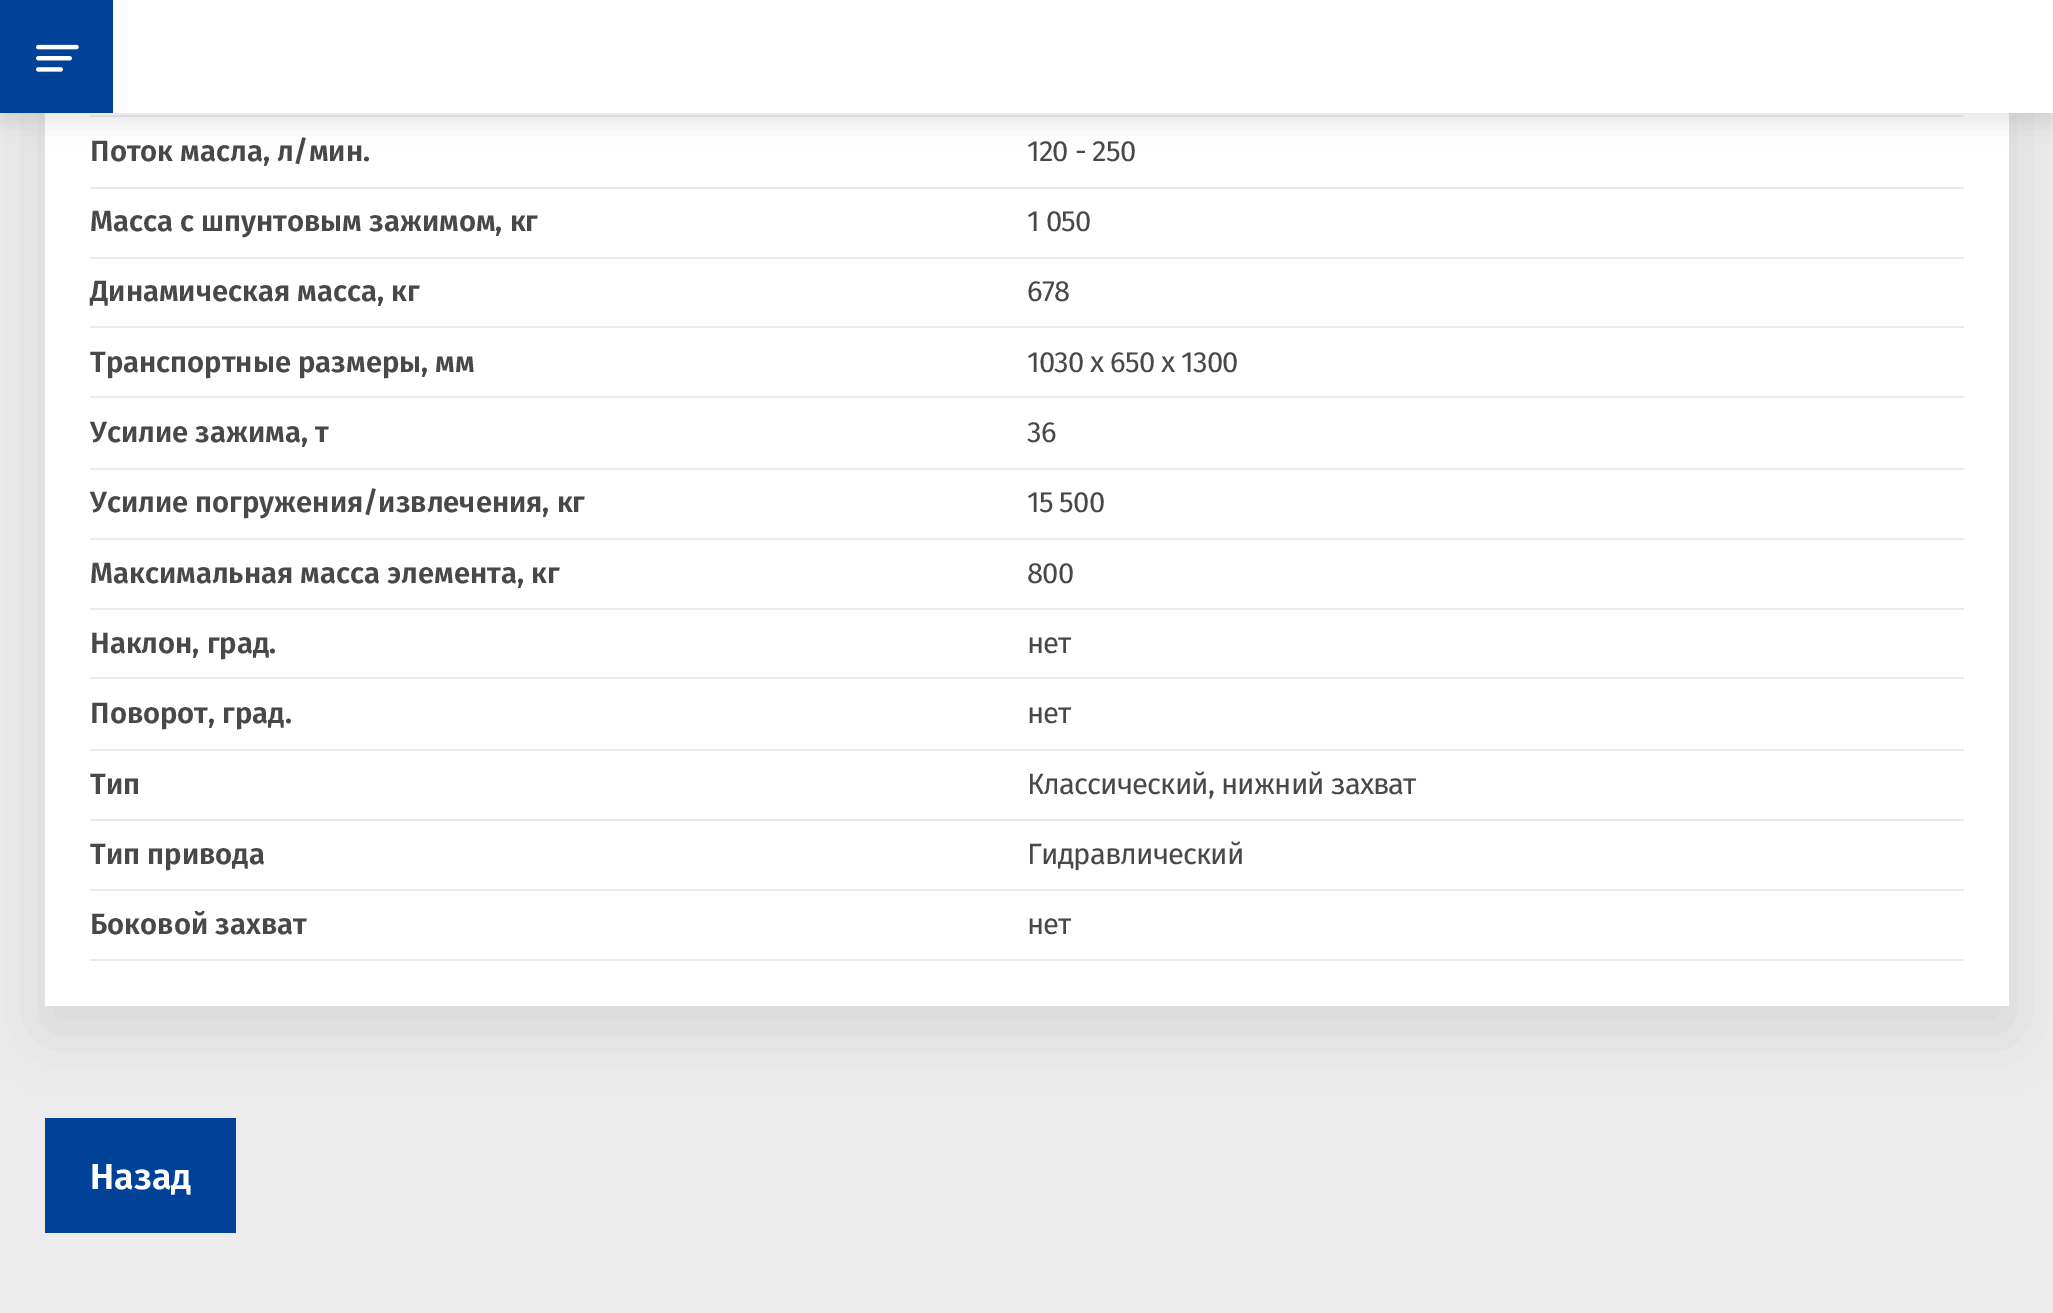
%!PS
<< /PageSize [2053 1313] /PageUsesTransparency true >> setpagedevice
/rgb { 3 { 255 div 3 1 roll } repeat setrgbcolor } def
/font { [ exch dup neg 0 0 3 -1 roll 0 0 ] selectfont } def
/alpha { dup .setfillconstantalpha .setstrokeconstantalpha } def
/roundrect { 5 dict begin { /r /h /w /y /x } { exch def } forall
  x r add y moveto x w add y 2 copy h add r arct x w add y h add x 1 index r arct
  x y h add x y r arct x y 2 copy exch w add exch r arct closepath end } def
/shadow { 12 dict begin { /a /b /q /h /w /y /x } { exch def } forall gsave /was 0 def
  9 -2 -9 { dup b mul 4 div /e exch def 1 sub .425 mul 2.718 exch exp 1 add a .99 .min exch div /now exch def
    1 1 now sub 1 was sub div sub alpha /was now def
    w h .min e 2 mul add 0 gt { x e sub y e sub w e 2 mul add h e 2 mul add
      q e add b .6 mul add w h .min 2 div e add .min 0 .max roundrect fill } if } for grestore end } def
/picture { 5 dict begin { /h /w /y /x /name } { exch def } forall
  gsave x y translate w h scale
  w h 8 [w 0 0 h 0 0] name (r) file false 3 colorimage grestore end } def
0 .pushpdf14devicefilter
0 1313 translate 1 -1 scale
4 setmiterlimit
236 236 236 rgb
0 0 2053 1313 rectfill
0 66 151 rgb
45 1118 191 115 rectfill
0 0 0 rgb
45 -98 1964 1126 0 32.5 0.1 shadow
255 255 255 rgb
45 113 1964 893 rectfill
236 236 236 rgb
90 115 1874 2 rectfill
0 0 0 rgb
0 9 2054 113 0 11 0.1 shadow
255 255 255 rgb
113 0 1940 113 rectfill
0 66 151 rgb
0 0 113 113 rectfill
(img/1.rgb) 36 44 43 28 picture
[
  [90 187 1874 2 236 236 236]
  [90 257 1874 2 236 236 236]
  [90 326 1874 2 236 236 236]
  [90 396 1874 2 236 236 236]
  [90 468 1874 2 236 236 236]
  [90 538 1874 2 236 236 236]
  [90 608 1874 2 236 236 236]
  [90 677 1874 2 236 236 236]
  [90 749 1874 2 236 236 236]
  [90 819 1874 2 236 236 236]
  [90 889 1874 2 236 236 236]
  [90 959 1874 2 236 236 236]
] { aload pop rgb rectfill } forall
/FiraSans-SemiBold 29.25 font
72 72 72 rgb
90 161 moveto (Поток масла, л/мин.) show
/FiraSans-Regular 29.25 font
1027 161 moveto -0.9 0 (120 - 250) ashow
/FiraSans-SemiBold 29.25 font
90 231 moveto (Масса с шпунтовым зажимом, кг) show
/FiraSans-Regular 29.25 font
1027 231 moveto -0.9 0 (1 050) ashow
/FiraSans-SemiBold 29.25 font
90 301 moveto (Динамическая масса, кг) show
/FiraSans-Regular 29.25 font
1027 301 moveto -0.9 0 (678) ashow
/FiraSans-SemiBold 29.25 font
90 372 moveto (Транспортные размеры, мм) show
/FiraSans-Regular 29.25 font
1027 372 moveto -0.9 0 (1030 х 650 х 1300) ashow
/FiraSans-SemiBold 29.25 font
90 442 moveto (Усилие зажима, т) show
/FiraSans-Regular 29.25 font
1027 442 moveto -0.9 0 (36) ashow
/FiraSans-SemiBold 29.25 font
90 512 moveto (Усилие погружения/извлечения, кг) show
/FiraSans-Regular 29.25 font
1027 512 moveto -0.9 0 (15 500) ashow
/FiraSans-SemiBold 29.25 font
90 583 moveto (Максимальная масса элемента, кг) show
/FiraSans-Regular 29.25 font
1027 583 moveto -0.9 0 (800) ashow
/FiraSans-SemiBold 29.25 font
90 653 moveto (Наклон, град.) show
/FiraSans-Regular 29.25 font
1027 653 moveto -0.9 0 (нет) ashow
/FiraSans-SemiBold 29.25 font
90 723 moveto (Поворот, град.) show
/FiraSans-Regular 29.25 font
1027 723 moveto -0.9 0 (нет) ashow
/FiraSans-SemiBold 29.25 font
90 794 moveto (Тип) show
/FiraSans-Regular 29.25 font
1027 794 moveto -0.9 0 (Классический, нижний захват) ashow
/FiraSans-SemiBold 29.25 font
90 864 moveto (Тип привода) show
/FiraSans-Regular 29.25 font
1027 864 moveto -0.9 0 (Гидравлический) ashow
/FiraSans-SemiBold 29.25 font
90 934 moveto (Боковой захват) show
/FiraSans-Regular 29.25 font
1027 934 moveto -0.9 0 (нет) ashow
/FiraSans-SemiBold 36 font
255 255 255 rgb
90 1189 moveto (Назад) show
.poppdf14devicefilter showpage
